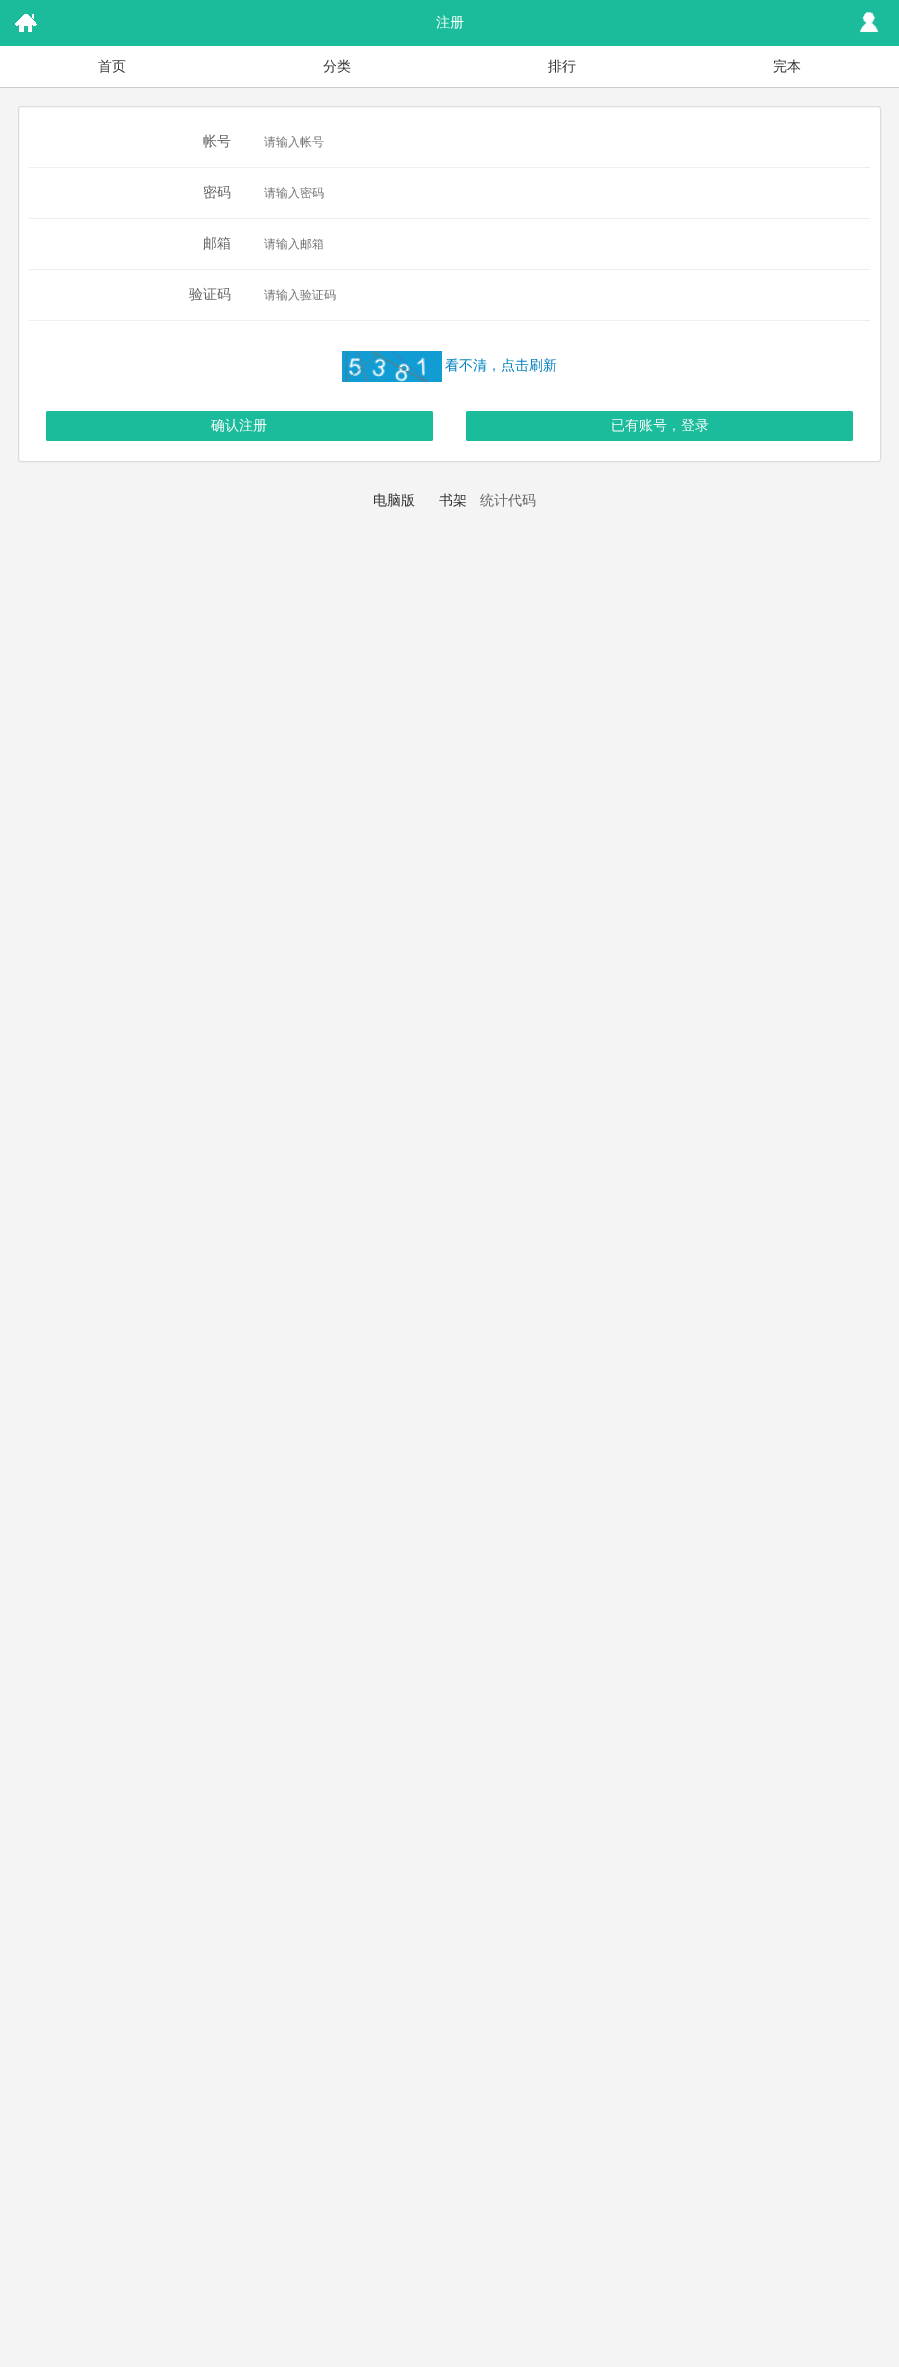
%!PS
<< /PageSize [899 2367] >> setpagedevice
/rgb { 3 { 255 div 3 1 roll } repeat setrgbcolor } def
/font { [ exch dup neg 0 0 3 -1 roll 0 0 ] selectfont } def
/roundrect { 5 dict begin { /r /h /w /y /x } { exch def } forall
  x r add y moveto x w add y 2 copy h add r arct x w add y h add x 1 index r arct
  x y h add x y r arct x y 2 copy exch w add exch r arct closepath end } def
/picture { 5 dict begin { /h /w /y /x /name } { exch def } forall
  gsave x y translate w h scale
  w h 8 [w 0 0 h 0 0] name (r) file false 3 colorimage grestore end } def
0 2367 translate 1 -1 scale
4 setmiterlimit
244 244 244 rgb
0 0 899 2367 rectfill
26 188 156 rgb
0 0 899 46 rectfill
(img/1.rgb) 15 14 22 18 picture
(img/2.rgb) 860 12 19 21 picture
255 255 255 rgb
0 46 899 41 rectfill
204 204 204 rgb
0 87 899 1 rectfill
255 255 255 rgb
18.5 106.5 862 355 2.5 roundrect gsave fill grestore
221 221 221 rgb
stroke
[
  [29 167 841 1 238 238 238]
  [29 218 841 1 238 238 238]
  [29 269 841 1 238 238 238]
  [29 320 841 1 238 238 238]
] { aload pop rgb rectfill } forall
(img/3.rgb) 342 351 100 31 picture
26 188 156 rgb
46 411 387 30 2 roundrect fill
466 411 387 30 2 roundrect fill
/WenQuanYiZenHei-Medium 14 font
255 255 255 rgb
436 27 moveto (注册) show
51 51 51 rgb
[
  [(首页) 98 71]
  [(分类) 323 71]
  [(排行) 548 71]
  [(完本) 773 71]
] { aload pop moveto show } forall
102 102 102 rgb
203 146 moveto (帐号) show
/WenQuanYiZenHei-Medium 12 font
117 117 117 rgb
264 146 moveto (请输入帐号) show
/WenQuanYiZenHei-Medium 14 font
102 102 102 rgb
203 197 moveto (密码) show
/WenQuanYiZenHei-Medium 12 font
117 117 117 rgb
264 197 moveto (请输入密码) show
/WenQuanYiZenHei-Medium 14 font
102 102 102 rgb
203 248 moveto (邮箱) show
/WenQuanYiZenHei-Medium 12 font
117 117 117 rgb
264 248 moveto (请输入邮箱) show
/WenQuanYiZenHei-Medium 14 font
102 102 102 rgb
189 299 moveto (验证码) show
/WenQuanYiZenHei-Medium 12 font
117 117 117 rgb
264 299 moveto (请输入验证码) show
/WenQuanYiZenHei-Medium 14 font
0 128 192 rgb
445 370 moveto (看不清，点击刷新) show
255 255 255 rgb
211 430 moveto (确认注册) show
611 430 moveto (已有账号，登录) show
51 51 51 rgb
373 505 moveto (电脑版) show
439 505 moveto (书架) show
102 102 102 rgb
480 505 moveto (统计代码) show
showpage
